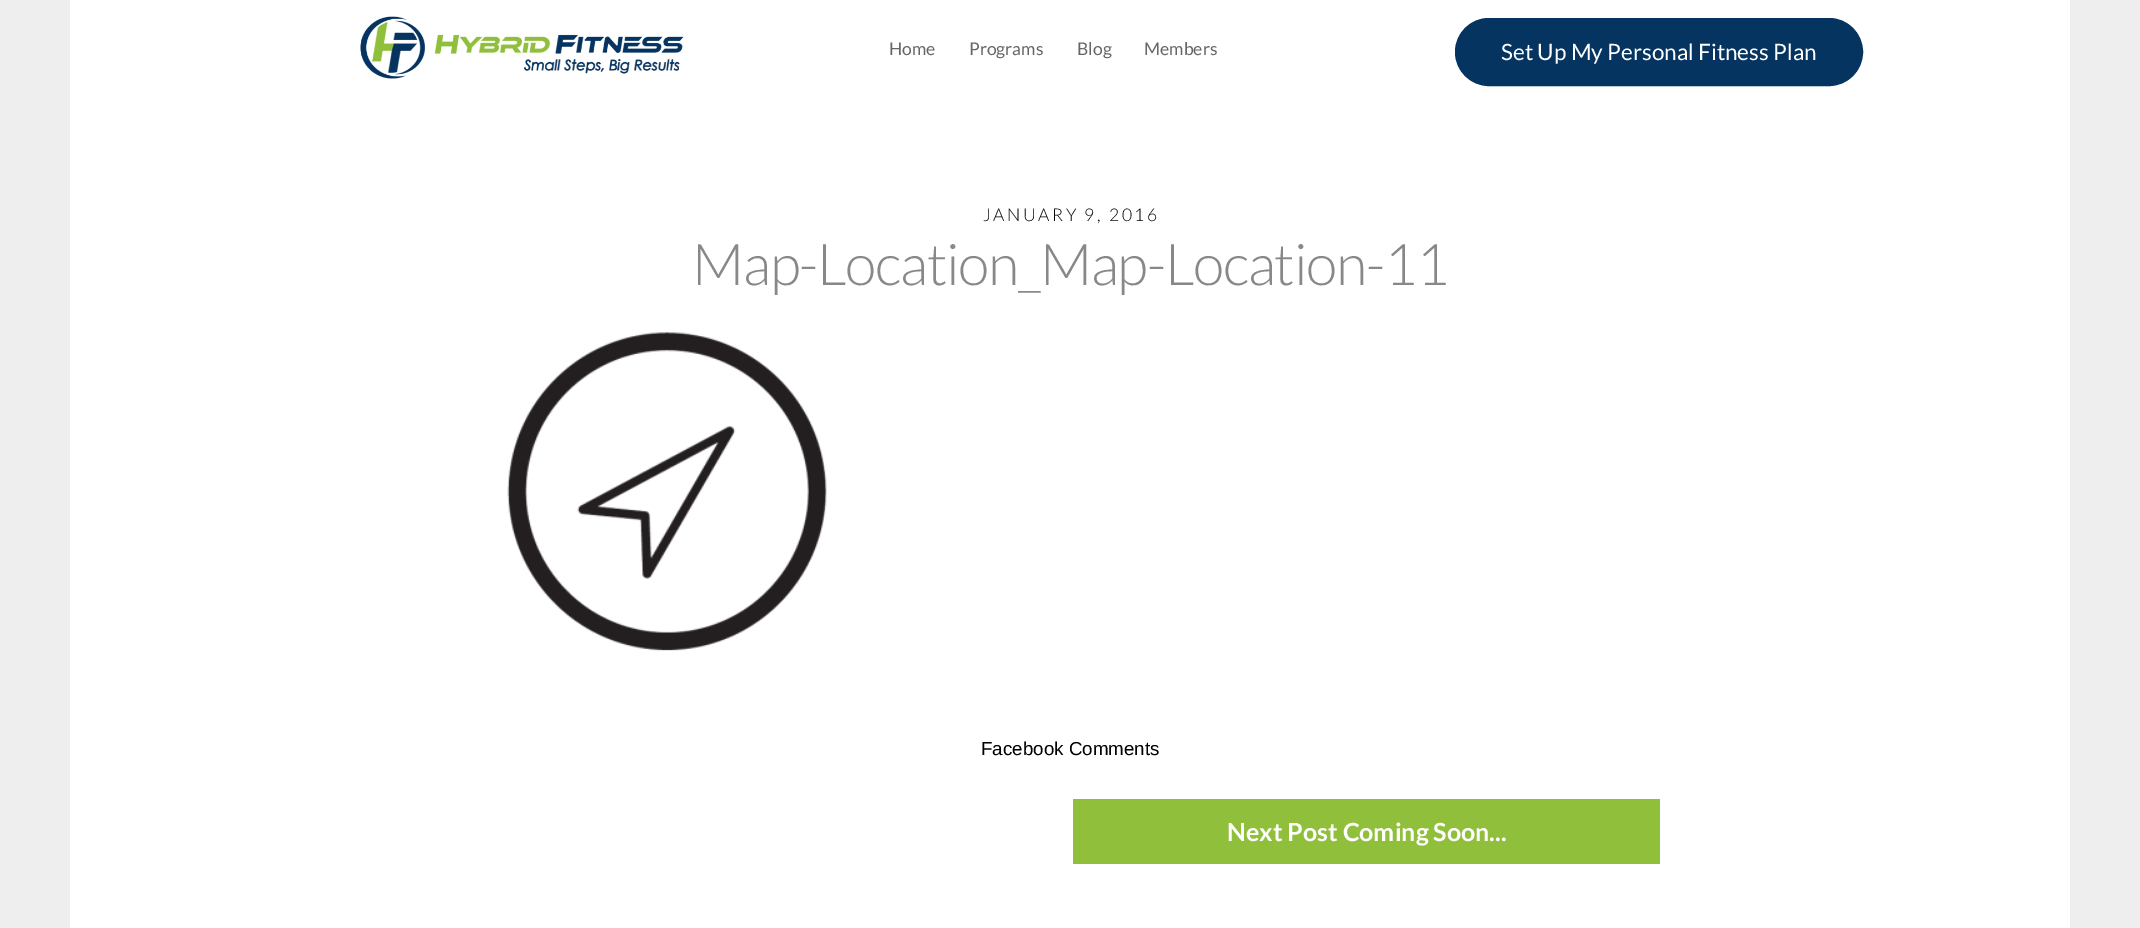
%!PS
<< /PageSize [2140 928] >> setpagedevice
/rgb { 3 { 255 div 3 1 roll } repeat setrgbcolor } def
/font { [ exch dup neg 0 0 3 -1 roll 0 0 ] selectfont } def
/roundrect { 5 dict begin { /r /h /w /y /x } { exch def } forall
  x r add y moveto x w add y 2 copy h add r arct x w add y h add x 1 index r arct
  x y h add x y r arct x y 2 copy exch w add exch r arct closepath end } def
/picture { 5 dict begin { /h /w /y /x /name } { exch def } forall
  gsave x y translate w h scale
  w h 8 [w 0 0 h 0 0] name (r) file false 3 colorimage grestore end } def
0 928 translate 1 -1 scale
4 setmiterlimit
238 238 238 rgb
0 0 2140 928 rectfill
255 255 255 rgb
70 0 2000 928 rectfill
(img/1.rgb) 360 16 324 63 picture
6 52 97 rgb
1455.5 18.5 407 67 33.5 roundrect gsave fill grestore
stroke
(img/2.rgb) 507 332 320 319 picture
143 191 59 rgb
1073 799 587 65 rectfill
/Lato-Regular 17.5 font
102 102 102 rgb
[
  [(Home) 889 55]
  [(Programs) 969 55]
  [(Blog) 1077 55]
  [(Members) 1144 55]
] { aload pop moveto show } forall
/Lato-Regular 22.5 font
255 255 255 rgb
1501 60 moveto (Set Up My Personal Fitness Plan) show
/Lato-Light 17.5 font
10 10 10 rgb
983 221 moveto 2.5 0 (JANUARY 9, 2016) ashow
/Lato-Light 57.5 font
136 136 136 rgb
692 285 moveto -1.25 0 (Map-Location_Map-Location-11) ashow
/LiberationSans-Regular 18.75 font
0 0 0 rgb
981 755 moveto (Facebook Comments) show
/Lato-Bold 25 font
255 255 255 rgb
1227 841 moveto (Next Post Coming Soon...) show
showpage
